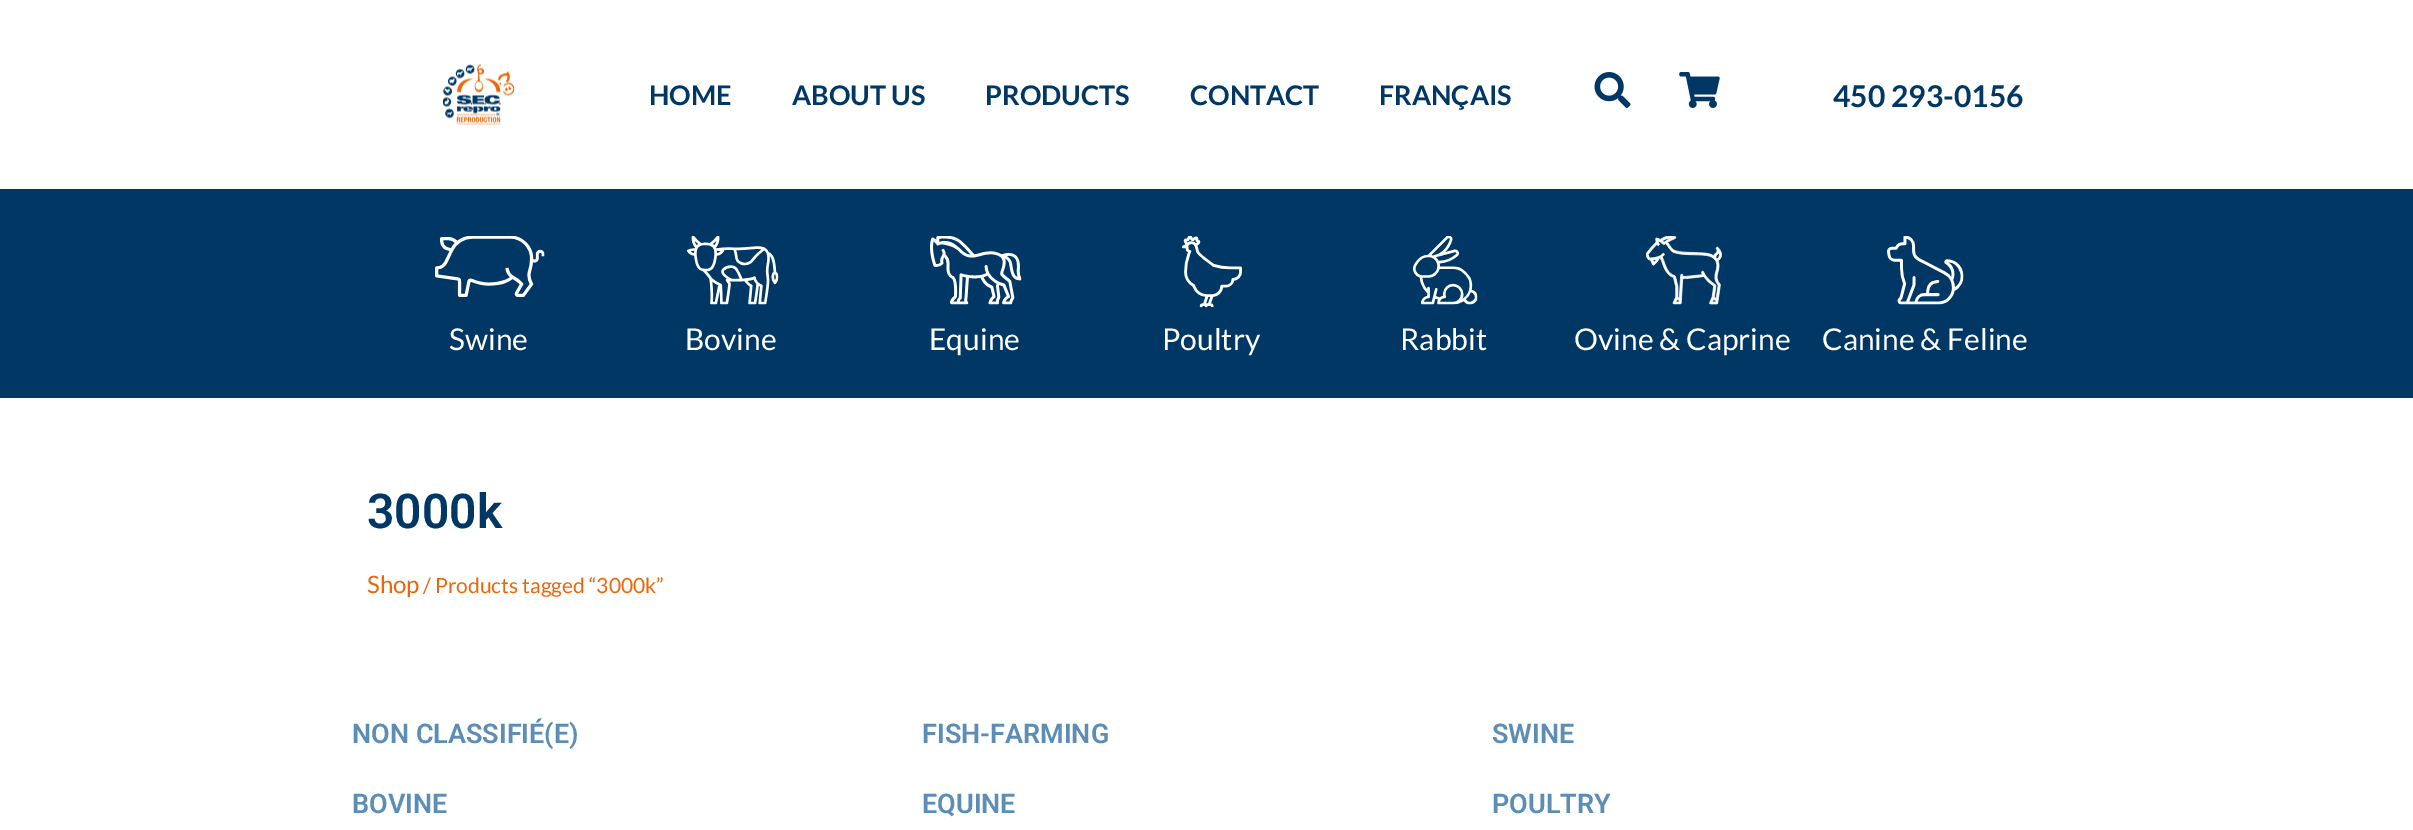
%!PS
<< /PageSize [2413 830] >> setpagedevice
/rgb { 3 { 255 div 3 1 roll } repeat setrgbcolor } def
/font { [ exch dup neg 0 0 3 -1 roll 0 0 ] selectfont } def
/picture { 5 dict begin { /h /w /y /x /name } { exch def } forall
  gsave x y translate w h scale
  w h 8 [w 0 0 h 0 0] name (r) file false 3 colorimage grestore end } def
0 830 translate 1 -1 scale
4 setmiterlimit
255 255 255 rgb
0 0 2413 830 rectfill
(img/1.rgb) 443 64 72 61 picture
(img/2.rgb) 1594 72 37 36 picture
(img/3.rgb) 1679 72 41 36 picture
0 55 100 rgb
0 189 2413 209 rectfill
(img/4.rgb) 435 236 110 61 picture
(img/5.rgb) 687 236 92 69 picture
(img/6.rgb) 930 236 92 69 picture
(img/7.rgb) 1182 236 60 72 picture
(img/8.rgb) 1413 236 65 69 picture
(img/9.rgb) 1646 236 76 69 picture
(img/10.rgb) 1887 236 77 69 picture
/Lato-Bold 27 font
[
  [(HOME) 649 105]
  [(ABOUT US) 792 105]
  [(PRODUCTS) 985 105]
  [(CONTACT) 1190 105]
  [(FRANÇAIS) 1379 105]
] { aload pop moveto show } forall
/Lato-Bold 30 font
1833 107 moveto (450 293-0156) show
/Lato-Regular 30 font
255 255 255 rgb
[
  [(Swine) 449 350]
  [(Bovine) 685 350]
  [(Equine) 929 350]
  [(Poultry) 1162 350]
  [(Rabbit) 1400 350]
  [(Ovine & Caprine) 1574 350]
  [(Canine & Feline) 1822 350]
] { aload pop moveto show } forall
/Roboto-SemiBold 48 font
0 55 100 rgb
367 528 moveto (3000k) show
/Lato-Regular 24 font
236 102 12 rgb
367 593 moveto (Shop) show
/Lato-Regular 21 font
423 593 moveto (/ Products tagged “3000k”) show
/Roboto-SemiBold 27 font
92 141 181 rgb
[
  [(NON CLASSIFIÉ\(E\)) 352 743]
  [(FISH-FARMING) 922 743]
  [(SWINE) 1492 743]
  [(BOVINE) 352 813]
  [(EQUINE) 922 813]
  [(POULTRY) 1492 813]
] { aload pop moveto show } forall
showpage
